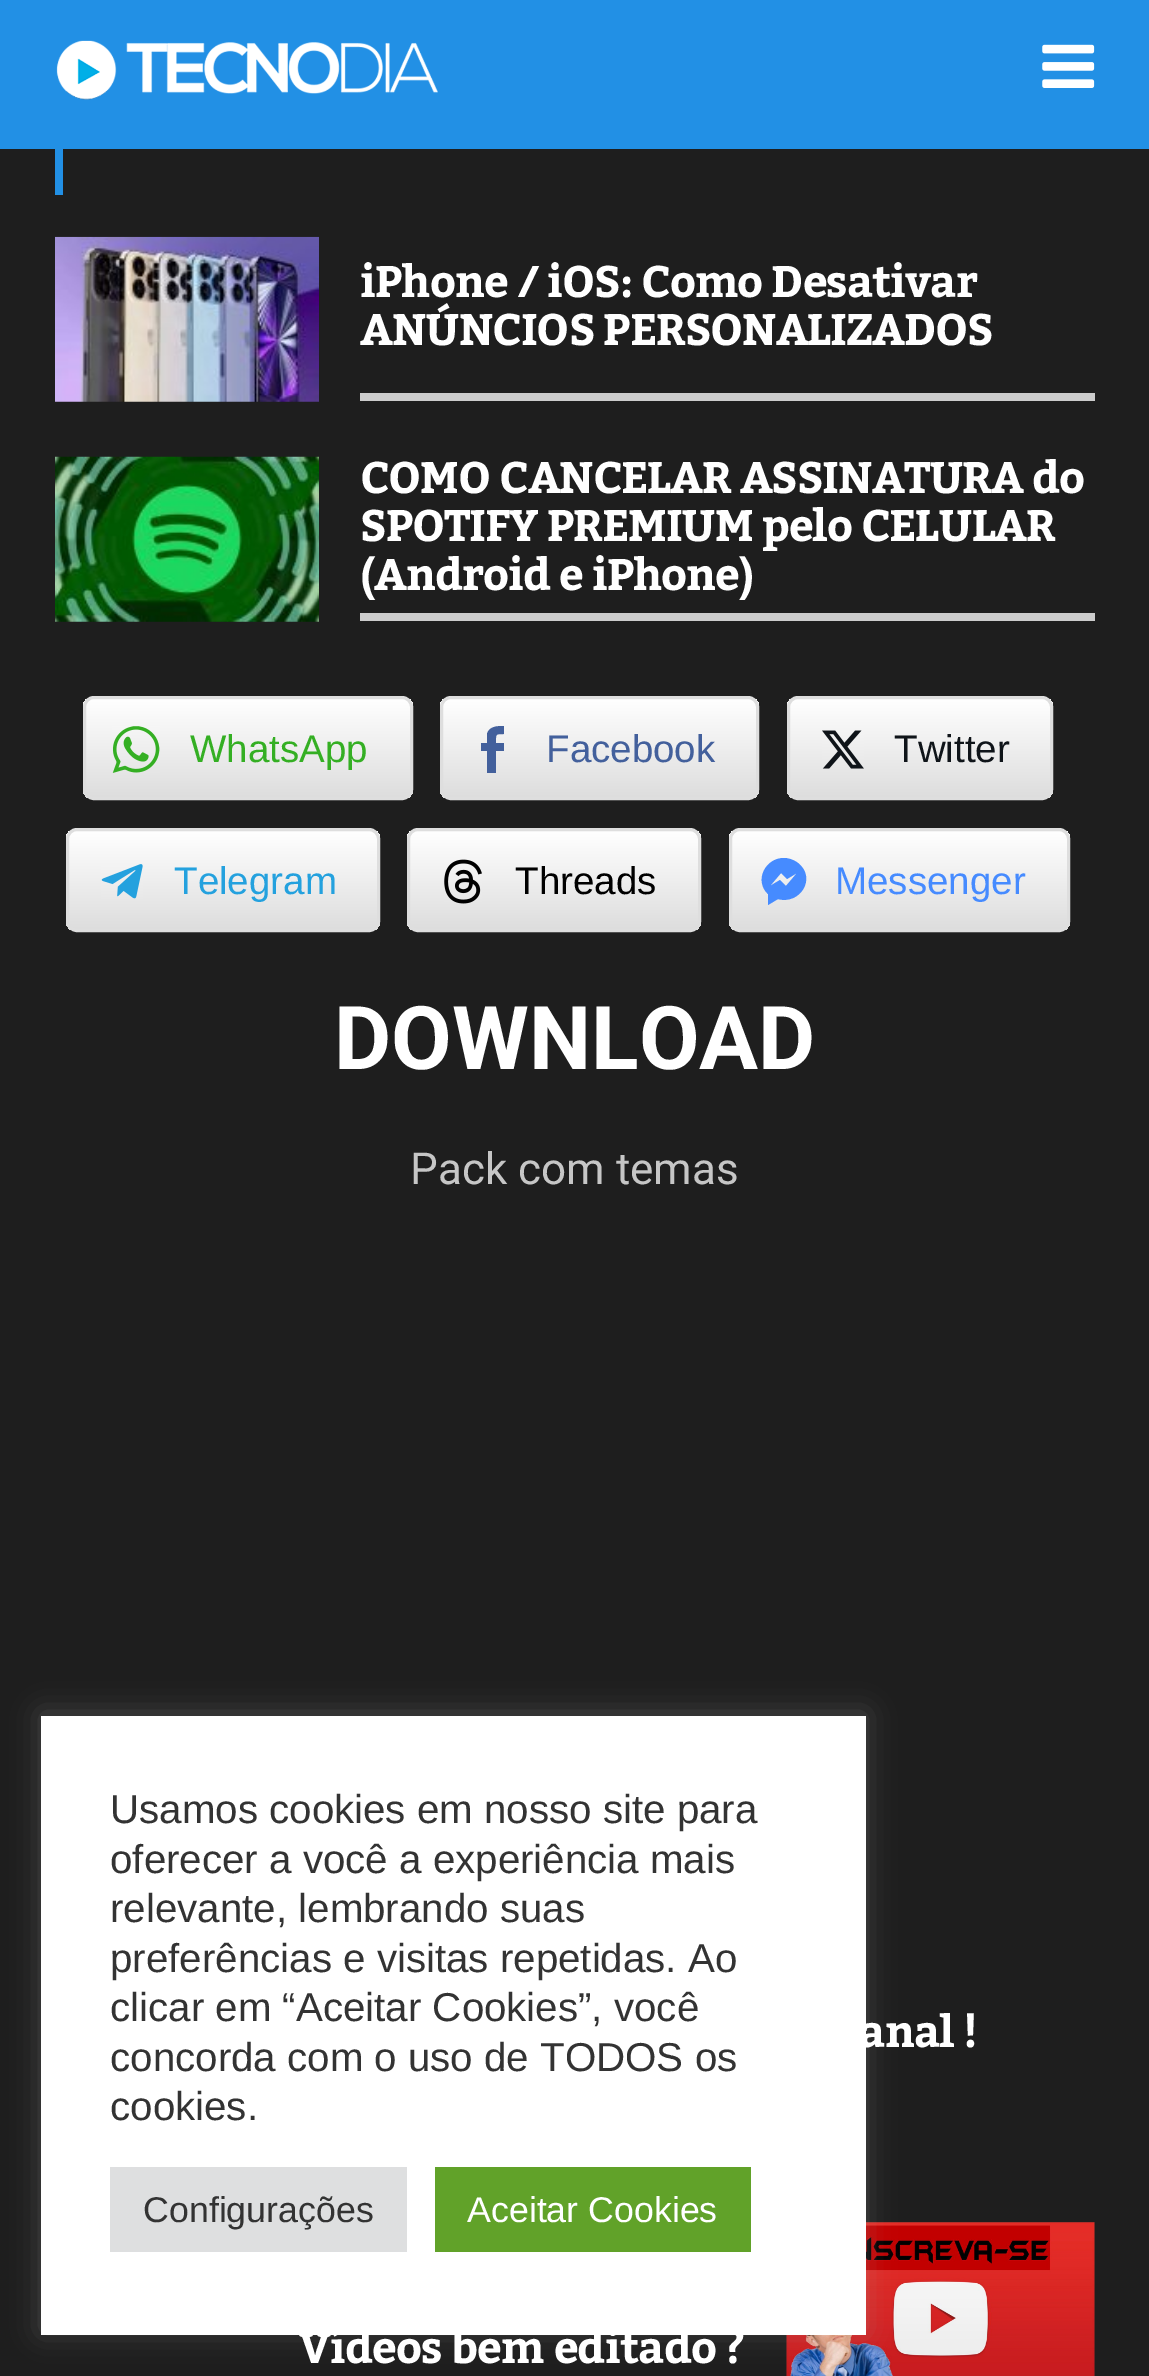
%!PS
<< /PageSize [1149 2376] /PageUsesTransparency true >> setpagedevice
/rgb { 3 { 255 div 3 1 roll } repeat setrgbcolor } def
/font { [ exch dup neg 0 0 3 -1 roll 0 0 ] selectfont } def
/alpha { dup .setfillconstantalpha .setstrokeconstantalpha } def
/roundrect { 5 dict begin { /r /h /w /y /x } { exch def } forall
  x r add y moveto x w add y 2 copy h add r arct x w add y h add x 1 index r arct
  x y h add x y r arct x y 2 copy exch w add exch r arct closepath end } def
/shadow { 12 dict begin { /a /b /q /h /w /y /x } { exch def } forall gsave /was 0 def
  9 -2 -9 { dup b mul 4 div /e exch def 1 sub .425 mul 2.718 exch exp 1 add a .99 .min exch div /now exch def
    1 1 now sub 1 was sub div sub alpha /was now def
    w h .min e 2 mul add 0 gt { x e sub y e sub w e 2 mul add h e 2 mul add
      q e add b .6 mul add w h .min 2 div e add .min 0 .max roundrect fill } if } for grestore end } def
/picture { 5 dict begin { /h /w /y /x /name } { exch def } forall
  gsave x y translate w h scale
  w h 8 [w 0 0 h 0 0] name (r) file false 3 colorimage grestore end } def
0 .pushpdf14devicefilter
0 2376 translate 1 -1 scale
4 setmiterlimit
30 30 30 rgb
0 0 1149 2376 rectfill
34 144 229 rgb
0 0 1149 149 rectfill
(img/1.rgb) 56 40 382 60 picture
(img/2.rgb) 1042 44 53 44 picture
55 149 8 46 rectfill
(img/3.rgb) 55 236 264 166 picture
204 204 204 rgb
360 393 735 8 rectfill
(img/4.rgb) 55 456 264 166 picture
360 613 735 8 rectfill
gsave
83 696 330 104 11 roundrect clip newpath
gsave 83 699 moveto 413 699 lineto 413 798 lineto 83 798 lineto closepath clip newpath
<< /ShadingType 2 /ColorSpace /DeviceRGB /Coords [248 699 248 798] /Extend [true true] /Function << /FunctionType 2 /Domain [0 1] /C0 [1 1 1] /C1 [0.867 0.867 0.867] /N 1 >> >> shfill grestore
grestore
222 222 222 rgb
3 setlinewidth
84.5 697.5 327 101 9.5 roundrect stroke
(img/5.rgb) 112 726 48 47 picture
gsave
440 696 319 104 11 roundrect clip newpath
gsave 440 699 moveto 759 699 lineto 759 798 lineto 440 798 lineto closepath clip newpath
<< /ShadingType 2 /ColorSpace /DeviceRGB /Coords [600 699 600 798] /Extend [true true] /Function << /FunctionType 2 /Domain [0 1] /C0 [1 1 1] /C1 [0.867 0.867 0.867] /N 1 >> >> shfill grestore
grestore
441.5 697.5 316 101 9.5 roundrect stroke
67 96 156 rgb
481 751 moveto 481 743 lineto 487 743 lineto 487 734 lineto 489 726 498 726 504 726 curveto 504 734 lineto 495 734 496 734 496 743 curveto 504 743 lineto 504 751 lineto 496 751 lineto 496 773 lineto 487 773 lineto 487 751 lineto closepath fill
gsave
787 696 266 104 11 roundrect clip newpath
gsave 787 699 moveto 1053 699 lineto 1053 798 lineto 787 798 lineto closepath clip newpath
<< /ShadingType 2 /ColorSpace /DeviceRGB /Coords [920 699 920 798] /Extend [true true] /Function << /FunctionType 2 /Domain [0 1] /C0 [1 1 1] /C1 [0.867 0.867 0.867] /N 1 >> >> shfill grestore
grestore
222 222 222 rgb
788.5 697.5 263 101 9.5 roundrect stroke
(img/6.rgb) 822 730 42 39 picture
gsave
66 828 314 104 11 roundrect clip newpath
gsave 66 831 moveto 380 831 lineto 380 930 lineto 66 930 lineto closepath clip newpath
<< /ShadingType 2 /ColorSpace /DeviceRGB /Coords [223 831 223 930] /Extend [true true] /Function << /FunctionType 2 /Domain [0 1] /C0 [1 1 1] /C1 [0.867 0.867 0.867] /N 1 >> >> shfill grestore
grestore
67.5 829.5 311 101 9.5 roundrect stroke
(img/7.rgb) 101 864 42 35 picture
gsave
407 828 294 104 11 roundrect clip newpath
gsave 407 831 moveto 701 831 lineto 701 930 lineto 407 930 lineto closepath clip newpath
<< /ShadingType 2 /ColorSpace /DeviceRGB /Coords [554 831 554 930] /Extend [true true] /Function << /FunctionType 2 /Domain [0 1] /C0 [1 1 1] /C1 [0.867 0.867 0.867] /N 1 >> >> shfill grestore
grestore
408.5 829.5 291 101 9.5 roundrect stroke
(img/8.rgb) 444 859 38 45 picture
gsave
729 828 341 104 11 roundrect clip newpath
gsave 729 831 moveto 1070 831 lineto 1070 930 lineto 729 930 lineto closepath clip newpath
<< /ShadingType 2 /ColorSpace /DeviceRGB /Coords [899 831 899 930] /Extend [true true] /Function << /FunctionType 2 /Domain [0 1] /C0 [1 1 1] /C1 [0.867 0.867 0.867] /N 1 >> >> shfill grestore
grestore
730.5 829.5 338 101 9.5 roundrect stroke
70 139 255 rgb
784 858 moveto 765 858 754 881 768 894 curveto 768 905 lineto 778 899 lineto 800 905 817 878 798 863 curveto 794 860 789 858 784 858 curveto closepath 786 886 moveto 780 880 lineto 770 886 lineto 781 873 lineto 787 879 lineto 797 873 lineto closepath fill
(img/9.rgb) 786 2222 309 154 picture
172 171 171 rgb
41 1713 825 619 0 14 0.3 shadow
[
  [41 1716 825 619 255 255 255]
  [110 2167 297 85 222 223 224]
  [435 2167 316 85 97 162 41]
] { aload pop rgb rectfill } forall
/Kadwa-Bold 44 font
255 255 255 rgb
360 297 moveto -1.1 0 (iPhone / iOS: Como Desativar) ashow
360 345 moveto -1.1 0 (ANÚNCIOS PERSONALIZADOS) ashow
360 493 moveto -1.1 0 (COMO CANCELAR ASSINATURA do) ashow
360 541 moveto -1.1 0 (SPOTIFY PREMIUM pelo CELULAR) ashow
360 590 moveto -1.1 0 (\(Android e iPhone\)) ashow
/LiberationSans-Regular 38.5 font
52 175 35 rgb
190 762 moveto (WhatsApp) show
67 96 156 rgb
546 762 moveto (Facebook) show
15 20 25 rgb
894 762 moveto (Twitter) show
36 161 222 rgb
174 894 moveto (Telegram) show
0 0 0 rgb
515 894 moveto (Threads) show
70 139 255 rgb
835 894 moveto (Messenger) show
/Roboto-Bold 88 font
255 255 255 rgb
334 1069 moveto (DOWNLOAD) show
/Roboto-Regular 44 font
198 198 198 rgb
410 1184 moveto (Pack com temas) show
/Kadwa-Bold 44 font
255 255 255 rgb
859 2047 moveto -0.9 0 (anal !) ashow
299 2363 moveto -0.9 0 (Vídeos bem editado ?) ashow
/LiberationSans-Regular 40.3 font
51 51 51 rgb
[
  [(Usamos cookies em nosso site para) 110 1823]
  [(oferecer a você a experiência mais) 110 1873]
  [(relevante, lembrando suas) 110 1922]
  [(preferências e visitas repetidas. Ao) 110 1972]
  [(clicar em “Aceitar Cookies”, você) 110 2021]
  [(concorda com o uso de TODOS os) 110 2071]
  [(cookies.) 110 2120]
] { aload pop moveto show } forall
/LiberationSans-Regular 35.75 font
143 2222 moveto (Configurações) show
255 255 255 rgb
467 2222 moveto (Aceitar Cookies) show
.poppdf14devicefilter showpage
